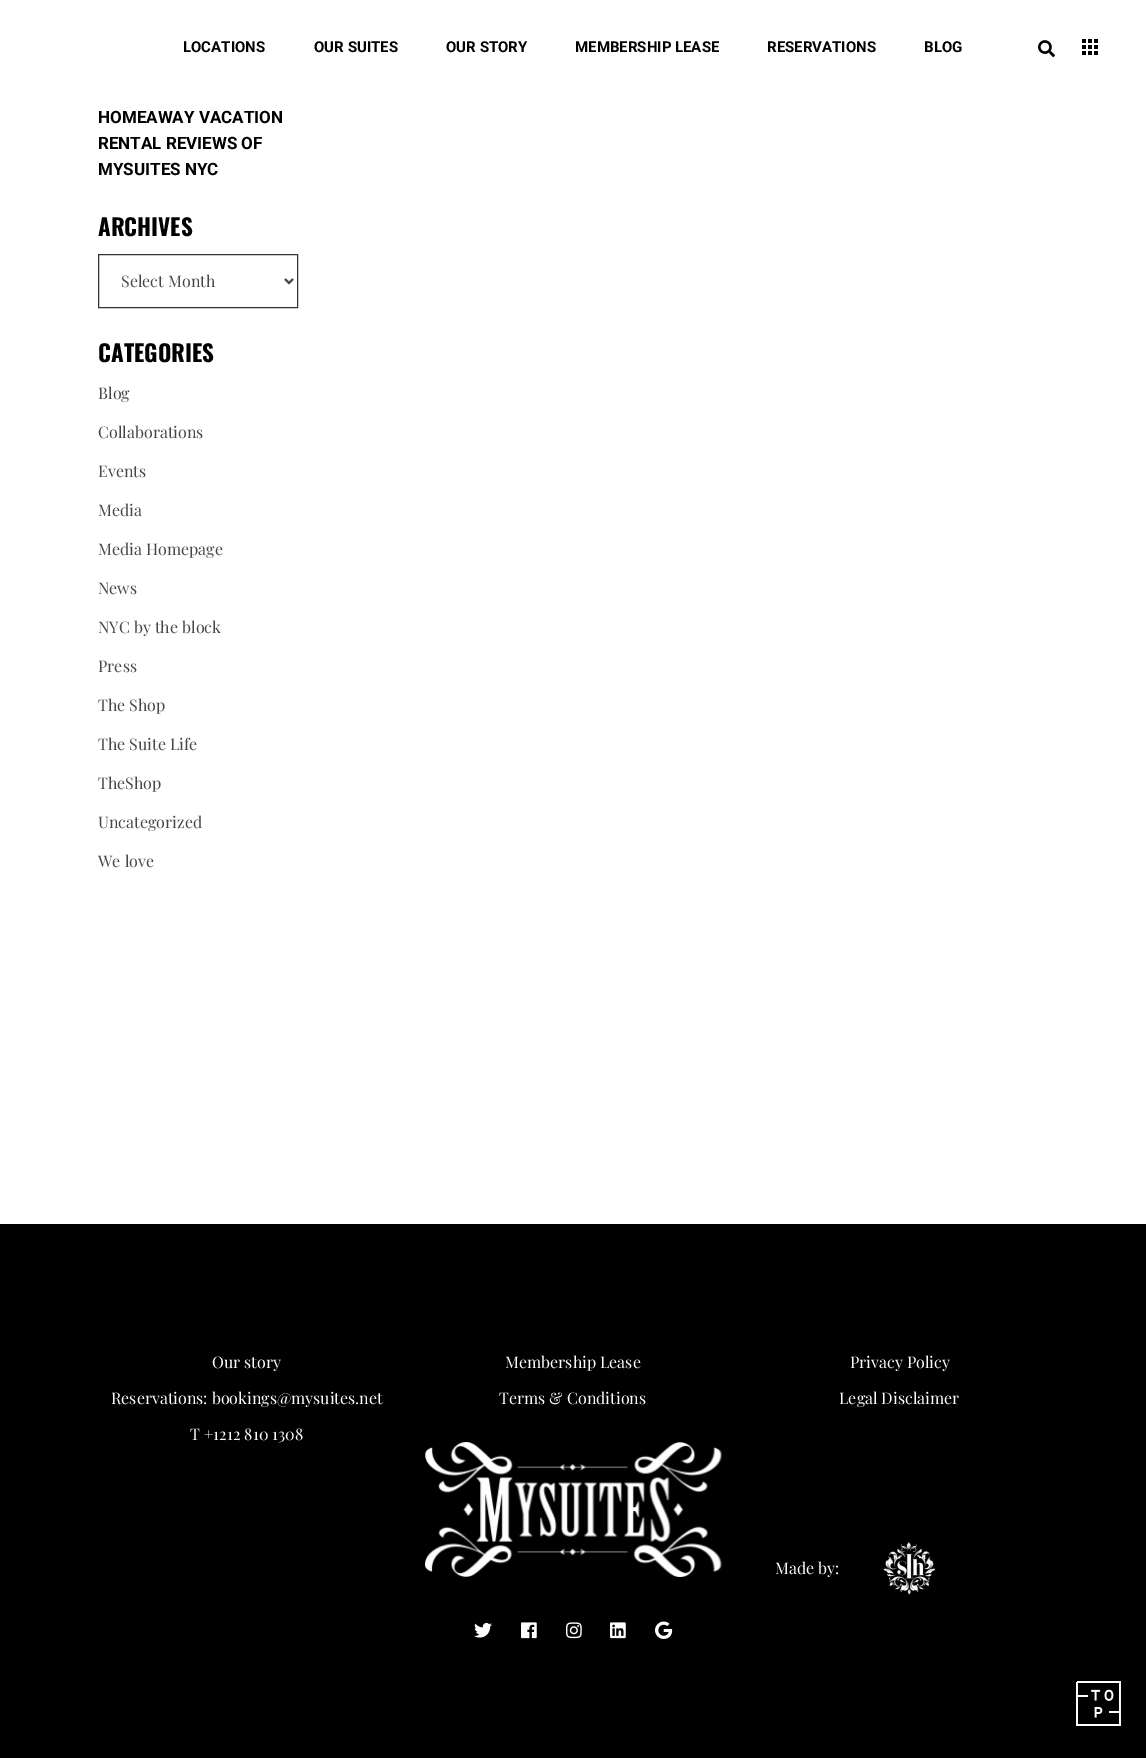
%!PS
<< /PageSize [1146 1758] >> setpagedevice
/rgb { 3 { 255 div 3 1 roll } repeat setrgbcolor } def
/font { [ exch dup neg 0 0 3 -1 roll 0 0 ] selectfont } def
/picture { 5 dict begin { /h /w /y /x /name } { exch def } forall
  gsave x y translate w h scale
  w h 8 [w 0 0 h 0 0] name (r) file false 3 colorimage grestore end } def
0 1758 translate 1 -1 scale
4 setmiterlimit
255 255 255 rgb
0 0 1146 1758 rectfill
(img/1.rgb) 1038 40 17 18 picture
[
  [1082 39 4 4 0 0 0]
  [1088 39 4 4 0 0 0]
  [1094 39 4 4 0 0 0]
  [1082 45 4 4 0 0 0]
  [1088 45 4 4 0 0 0]
  [1094 45 4 4 0 0 0]
  [1082 51 4 4 0 0 0]
  [1088 51 4 4 0 0 0]
  [1094 51 4 4 0 0 0]
] { aload pop rgb rectfill } forall
52 52 52 rgb
98.5 254.5 199 53 rectstroke
70 70 70 rgb
2 setlinewidth
285 279 moveto 289 283 lineto 293 279 lineto stroke
0 0 0 rgb
0 1224 1146 534 rectfill
(img/2.rgb) 425 1442 297 135 picture
(img/3.rgb) 474 1622 18 16 picture
(img/4.rgb) 521 1622 16 17 picture
(img/5.rgb) 566 1622 16 17 picture
(img/6.rgb) 610 1622 16 17 picture
(img/7.rgb) 655 1621 18 18 picture
(img/8.rgb) 883 1542 53 53 picture
(img/9.rgb) 1076 1681 45 45 picture
/Roboto-Bold 15 font
[
  [(LOCATIONS) 183 52]
  [(OUR SUITES) 314 52]
  [(OUR STORY) 446 52]
  [(MEMBERSHIP LEASE) 575 52]
  [(RESERVATIONS) 767 52]
  [(BLOG) 924 52]
] { aload pop moveto show } forall
/Roboto-Bold 17 font
[
  [(HOMEAWAY VACATION) 98 123]
  [(RENTAL REVIEWS OF) 98 149]
  [(MYSUITES NYC) 98 175]
] { aload pop moveto show } forall
/Oswald-Bold 23 font
98 236 moveto (ARCHIVES) show
/PlayfairDisplay-Regular 16 font
70 70 70 rgb
121 287 moveto (Select Month) show
/Oswald-Bold 23 font
0 0 0 rgb
98 362 moveto (CATEGORIES) show
/PlayfairDisplay-Regular 16 font
70 70 70 rgb
[
  [(Blog) 98 399]
  [(Collaborations) 98 438]
  [(Events) 98 477]
  [(Media) 98 516]
  [(Media Homepage) 98 555]
  [(News) 98 594]
  [(NYC by the block) 98 633]
  [(Press) 98 672]
  [(The Shop) 98 711]
  [(The Suite Life) 98 750]
  [(TheShop) 98 789]
  [(Uncategorized) 98 828]
  [(We love) 98 867]
] { aload pop moveto show } forall
255 255 255 rgb
[
  [(Our story) 212 1368]
  [(Reservations: bookings@mysuites.net) 111 1404]
  [(T +1212 810 1308) 190 1440]
  [(Membership Lease) 505 1368]
  [(Terms & Conditions) 499 1404]
  [(Privacy Policy) 850 1368]
  [(Legal Disclaimer) 839 1404]
  [(Made by:) 775 1574]
] { aload pop moveto show } forall
showpage
